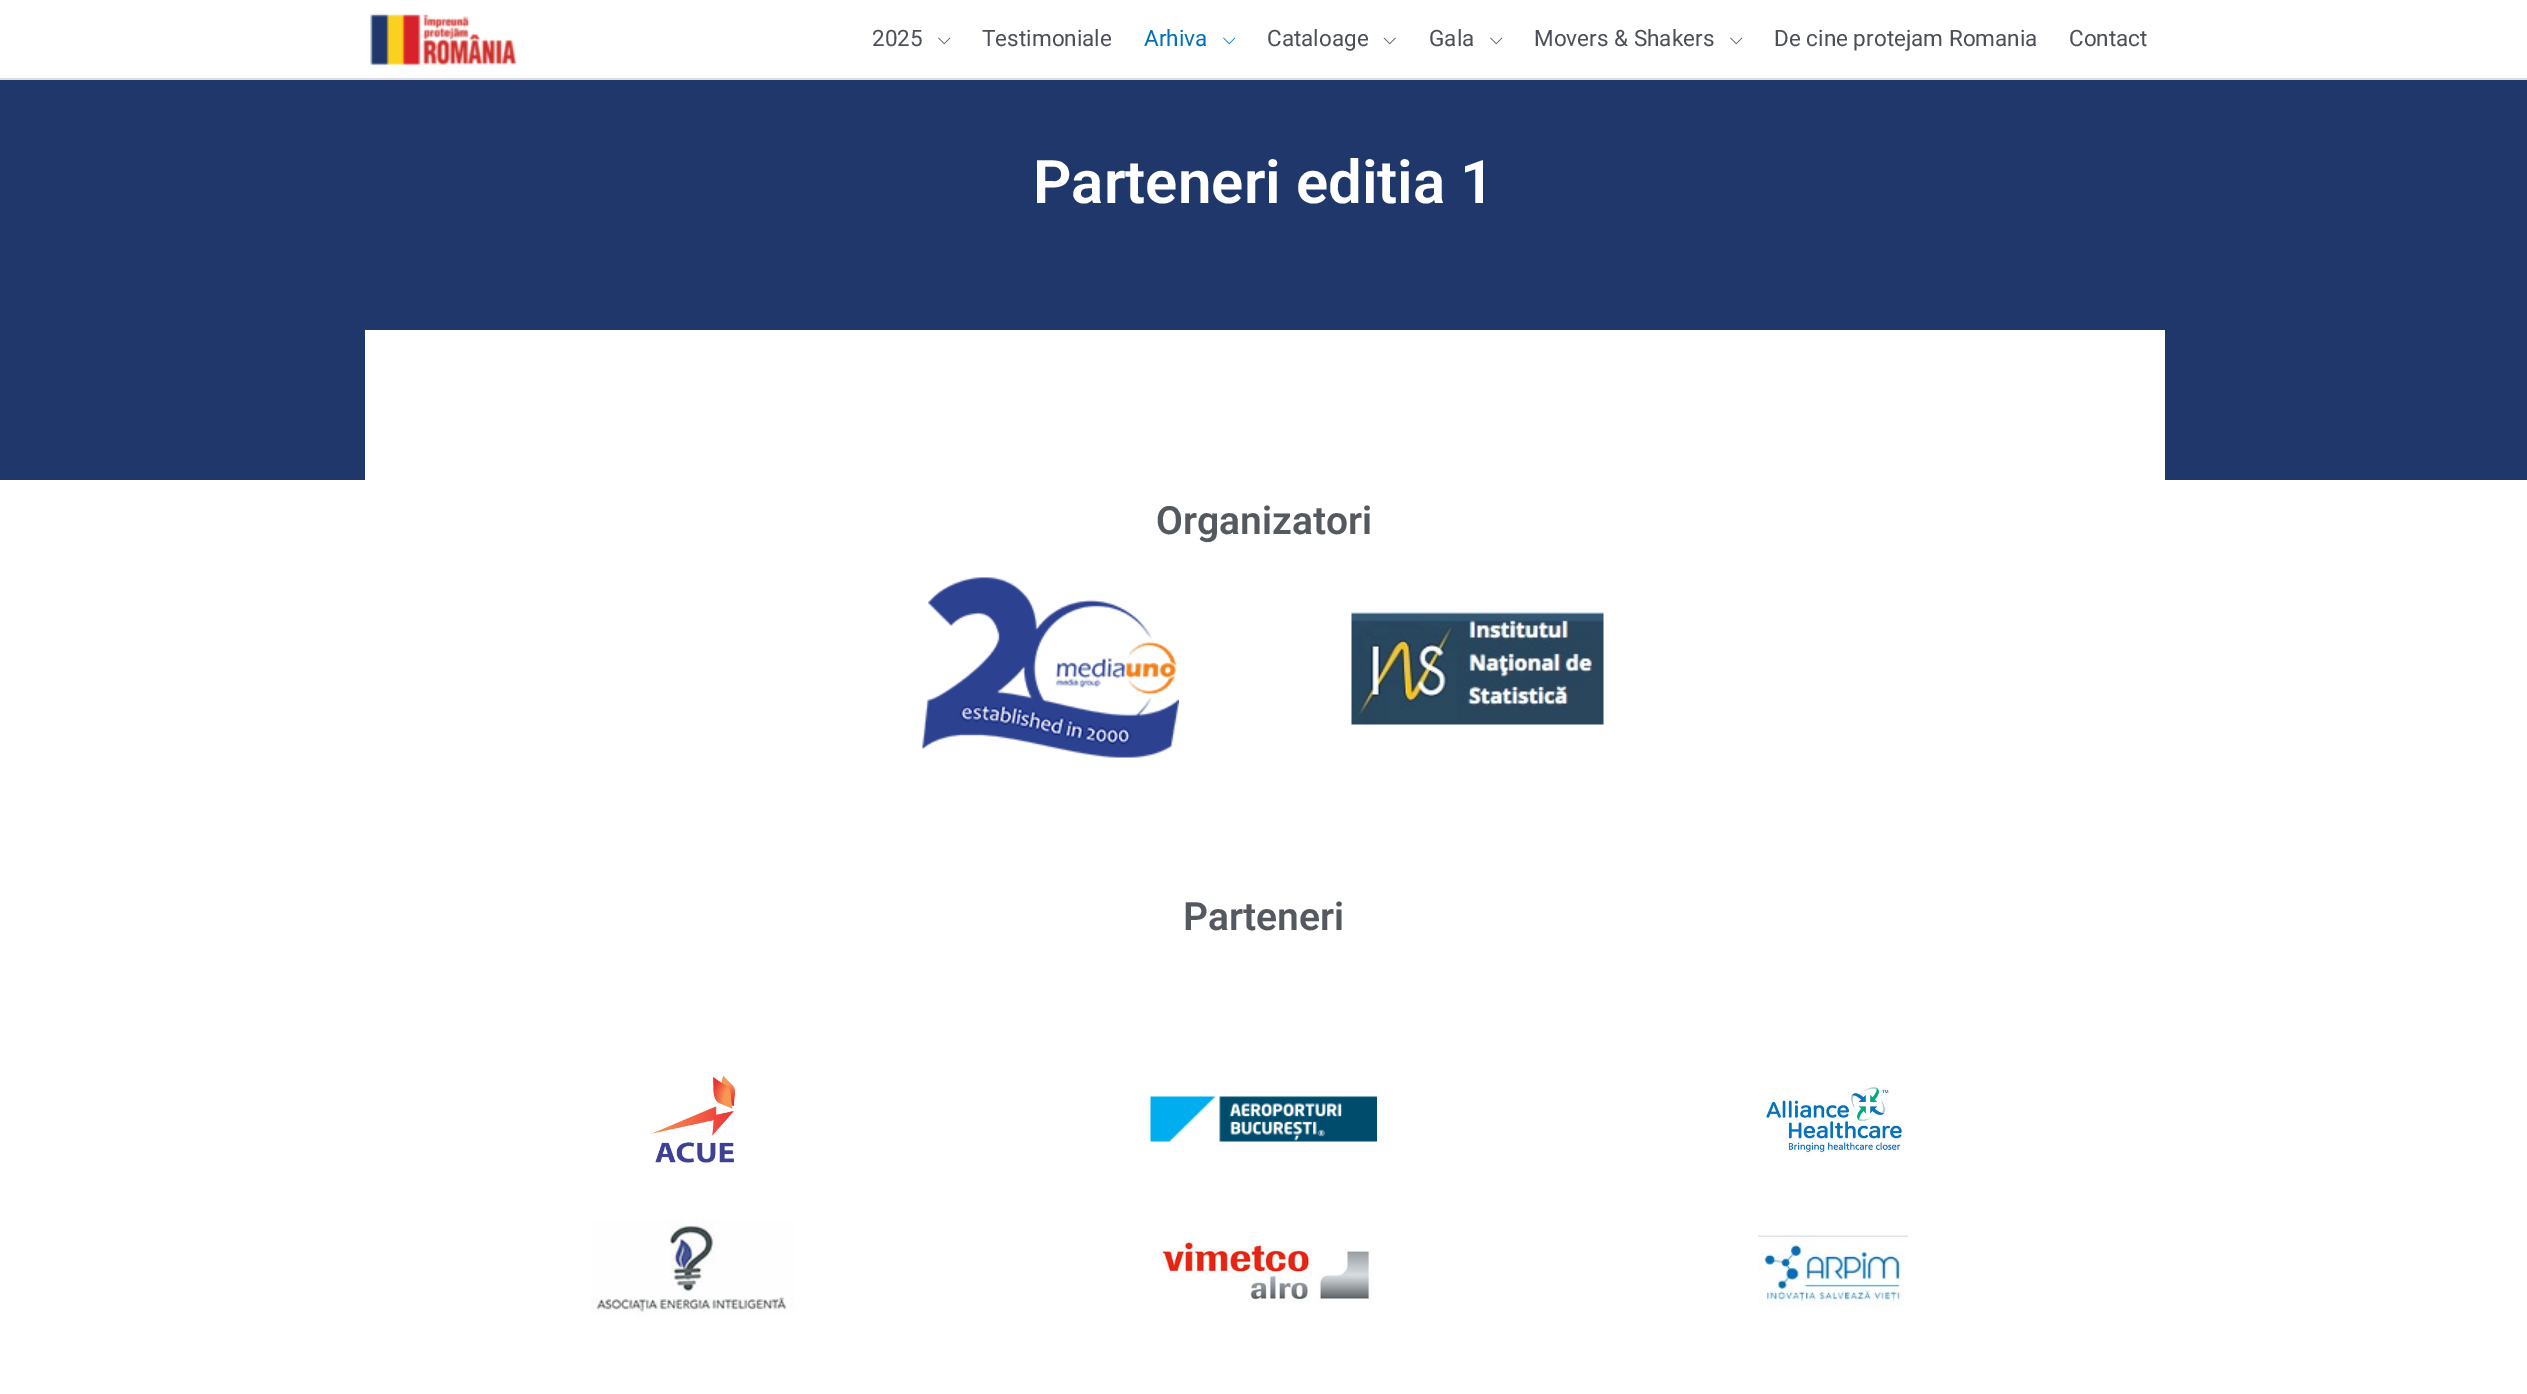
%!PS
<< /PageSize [2527 1394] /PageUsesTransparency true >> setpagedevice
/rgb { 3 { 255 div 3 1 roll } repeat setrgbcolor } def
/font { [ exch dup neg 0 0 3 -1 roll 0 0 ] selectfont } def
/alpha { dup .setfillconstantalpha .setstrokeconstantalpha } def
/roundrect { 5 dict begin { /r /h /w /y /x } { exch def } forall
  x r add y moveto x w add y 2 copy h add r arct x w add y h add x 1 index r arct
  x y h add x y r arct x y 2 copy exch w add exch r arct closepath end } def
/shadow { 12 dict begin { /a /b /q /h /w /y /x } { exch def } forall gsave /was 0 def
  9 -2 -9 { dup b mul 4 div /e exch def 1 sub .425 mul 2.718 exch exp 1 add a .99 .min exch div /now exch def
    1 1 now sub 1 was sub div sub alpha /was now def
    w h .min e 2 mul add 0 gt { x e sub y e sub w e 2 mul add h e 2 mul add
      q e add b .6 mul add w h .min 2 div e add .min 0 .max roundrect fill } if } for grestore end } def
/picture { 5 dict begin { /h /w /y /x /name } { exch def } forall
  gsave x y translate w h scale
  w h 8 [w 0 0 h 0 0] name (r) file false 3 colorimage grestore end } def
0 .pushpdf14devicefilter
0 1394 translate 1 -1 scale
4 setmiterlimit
255 255 255 rgb
0 0 2527 1394 rectfill
31 55 106 rgb
0 80 2527 400 rectfill
36 50 66 rgb
0 3 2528 80 0 7.5 0.07 shadow
255 255 255 rgb
0 0 2527 78 rectfill
221 221 221 rgb
0 78 2527 2 rectfill
(img/1.rgb) 370 13 147 53 picture
(img/2.rgb) 938 37 13 8 picture
(img/3.rgb) 1223 37 13 8 picture
(img/4.rgb) 1383 37 13 8 picture
(img/2.rgb) 1490 37 13 8 picture
(img/2.rgb) 1730 37 13 8 picture
255 255 255 rgb
365 330 1800 150 rectfill
(img/5.rgb) 922 577 257 181 picture
(img/6.rgb) 1351 612 253 113 picture
(img/7.rgb) 651 1075 84 88 picture
(img/8.rgb) 1150 1096 227 46 picture
(img/9.rgb) 1764 1085 142 71 picture
(img/10.rgb) 591 1220 204 96 picture
(img/11.rgb) 1160 1237 214 67 picture
(img/12.rgb) 1758 1234 150 73 picture
/Roboto-Regular 22.5 font
75 79 88 rgb
872 46 moveto (2025) show
982 46 moveto (Testimoniale) show
1 112 185 rgb
1144 46 moveto (Arhiva) show
75 79 88 rgb
[
  [(Cataloage) 1267 46]
  [(Gala) 1429 46]
  [(Movers & Shakers) 1534 46]
  [(De cine protejam Romania) 1774 46]
  [(Contact) 2069 46]
] { aload pop moveto show } forall
/Roboto-SemiBold 60 font
255 255 255 rgb
1033 203 moveto (Parteneri editia 1) show
/Roboto-SemiBold 39 font
84 89 95 rgb
1156 534 moveto (Organizatori) show
1183 930 moveto (Parteneri) show
.poppdf14devicefilter showpage
